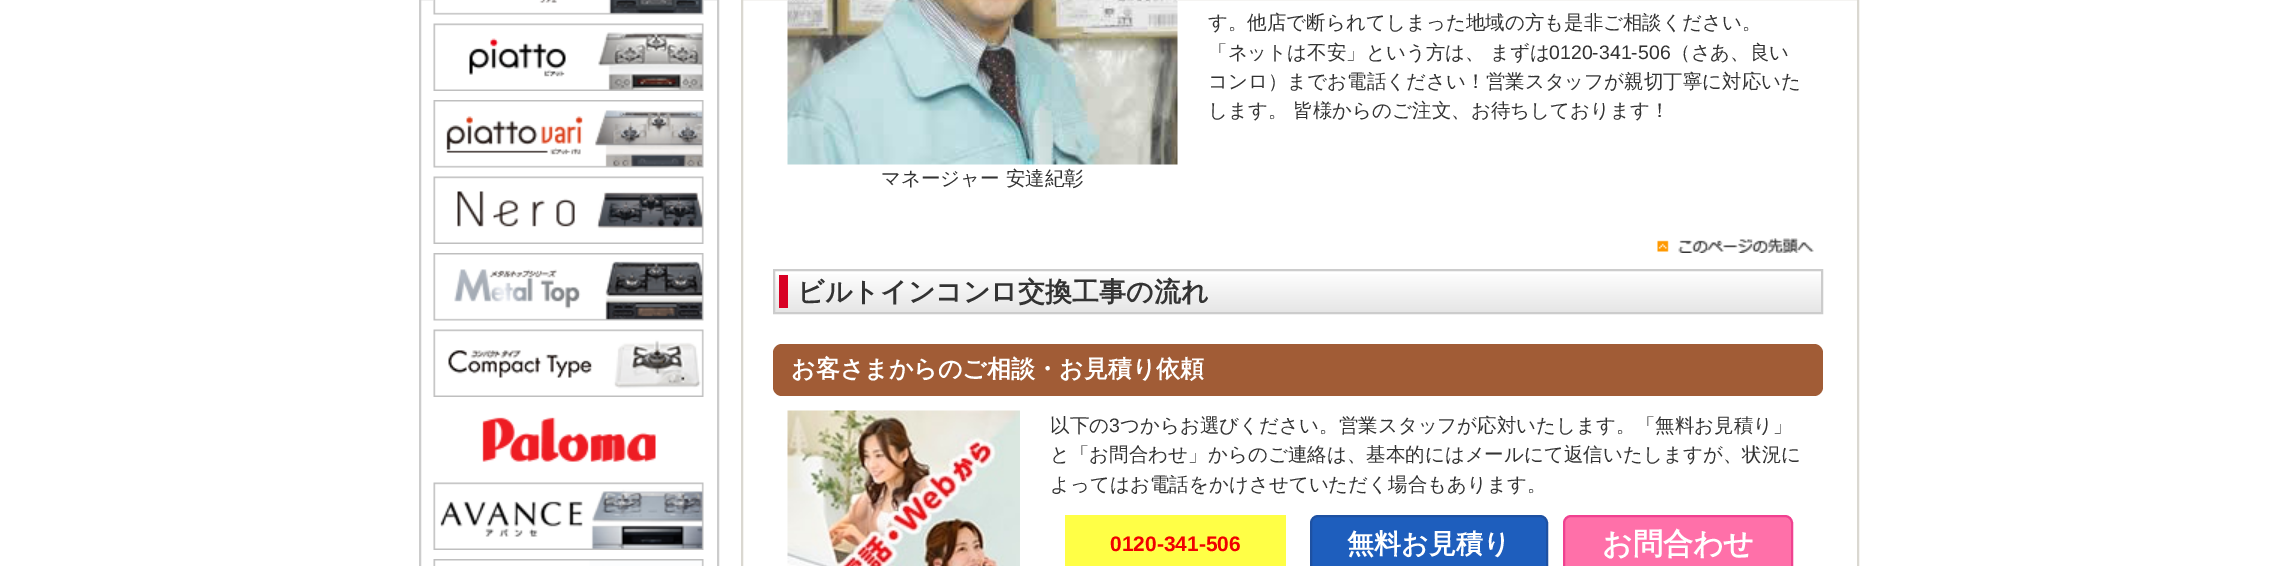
%!PS
<< /PageSize [2277 566] >> setpagedevice
/rgb { 3 { 255 div 3 1 roll } repeat setrgbcolor } def
/font { [ exch dup neg 0 0 3 -1 roll 0 0 ] selectfont } def
/roundrect { 5 dict begin { /r /h /w /y /x } { exch def } forall
  x r add y moveto x w add y 2 copy h add r arct x w add y h add x 1 index r arct
  x y h add x y r arct x y 2 copy exch w add exch r arct closepath end } def
/picture { 5 dict begin { /h /w /y /x /name } { exch def } forall
  gsave x y translate w h scale
  w h 8 [w 0 0 h 0 0] name (r) file false 3 colorimage grestore end } def
0 566 translate 1 -1 scale
4 setmiterlimit
255 255 255 rgb
0 0 2277 566 rectfill
204 204 204 rgb
2 setlinewidth
420 -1 298 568 rectstroke
(img/1.rgb) 433 0 271 15 picture
(img/2.rgb) 433 23 271 68 picture
(img/3.rgb) 433 100 271 68 picture
(img/4.rgb) 433 176 271 68 picture
(img/5.rgb) 433 253 271 68 picture
(img/6.rgb) 433 329 271 68 picture
(img/7.rgb) 482 417 174 45 picture
(img/8.rgb) 433 482 271 68 picture
(img/9.rgb) 433 559 271 7 picture
218 216 209 rgb
742 -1 1116 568 rectstroke
(img/10.rgb) 787 0 391 165 picture
(img/11.rgb) 1657 238 157 15 picture
gsave 775 274 moveto 1821 274 lineto 1821 312 lineto 775 312 lineto closepath clip newpath
<< /ShadingType 2 /ColorSpace /DeviceRGB /Coords [1298 270 1298 312] /Extend [true true] /Function << /FunctionType 2 /Domain [0 1] /C0 [1 1 1] /C1 [0.902 0.902 0.902] /N 1 >> >> shfill grestore
204 204 204 rgb
774 270 1048 43 rectstroke
216 0 36 rgb
779 275 9 33 rectfill
161 92 54 rgb
773 344 1050 52 9 roundrect fill
(img/12.rgb) 787 410 233 156 picture
255 255 70 rgb
1065 515 221 51 rectfill
30 94 189 rgb
1311 516 236 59 7 roundrect gsave fill grestore
30 81 162 rgb
stroke
255 112 169 rgb
1564 516 228 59 7 roundrect gsave fill grestore
240 65 144 rgb
stroke
/WenQuanYiZenHei-Medium 19.5 font
51 51 51 rgb
[
  [(す。他店で断られてしまった地域の方も是非ご相談ください。) 1208 29]
  [(「ネットは不安」という方は、) 1208 59]
  [(まずは) 1490 59]
] { aload pop moveto show } forall
/LiberationSans-Regular 19.5 font
1549 59 moveto (0120-341-506) show
/WenQuanYiZenHei-Medium 19.5 font
[
  [(（さあ、良い) 1671 59]
  [(コンロ）までお電話ください！営業スタッフが親切丁寧に対応いた) 1208 88]
  [(します。 皆様からのご注文、お待ちしております！) 1208 117]
  [(マネージャー 安達紀彰) 881 185]
] { aload pop moveto show } forall
/WenQuanYiZenHei-Bold 27 font
797 301 moveto (ビルトインコンロ交換工事の流れ) show
/WenQuanYiZenHei-Bold 24 font
255 255 255 rgb
791 377 moveto (お客さまからのご相談・お見積り依頼) show
/WenQuanYiZenHei-Medium 19.5 font
51 51 51 rgb
1050 432 moveto (以下の) show
/LiberationSans-Regular 19.5 font
1109 432 moveto (3) show
/WenQuanYiZenHei-Medium 19.5 font
[
  [(つからお選びください。営業スタッフが応対いたします。「無料お見積り」) 1120 432]
  [(と「お問合わせ」からのご連絡は、基本的にはメールにて返信いたしますが、状況に) 1050 461]
  [(よってはお電話をかけさせていただく場合もあります。) 1050 491]
] { aload pop moveto show } forall
/LiberationSans-Bold 21 font
240 0 0 rgb
1110 551 moveto (0120-341-506) show
/WenQuanYiZenHei-Bold 27 font
255 255 255 rgb
1347 553 moveto (無料お見積り) show
/WenQuanYiZenHei-Bold 30 font
1602 554 moveto (お問合わせ) show
showpage
